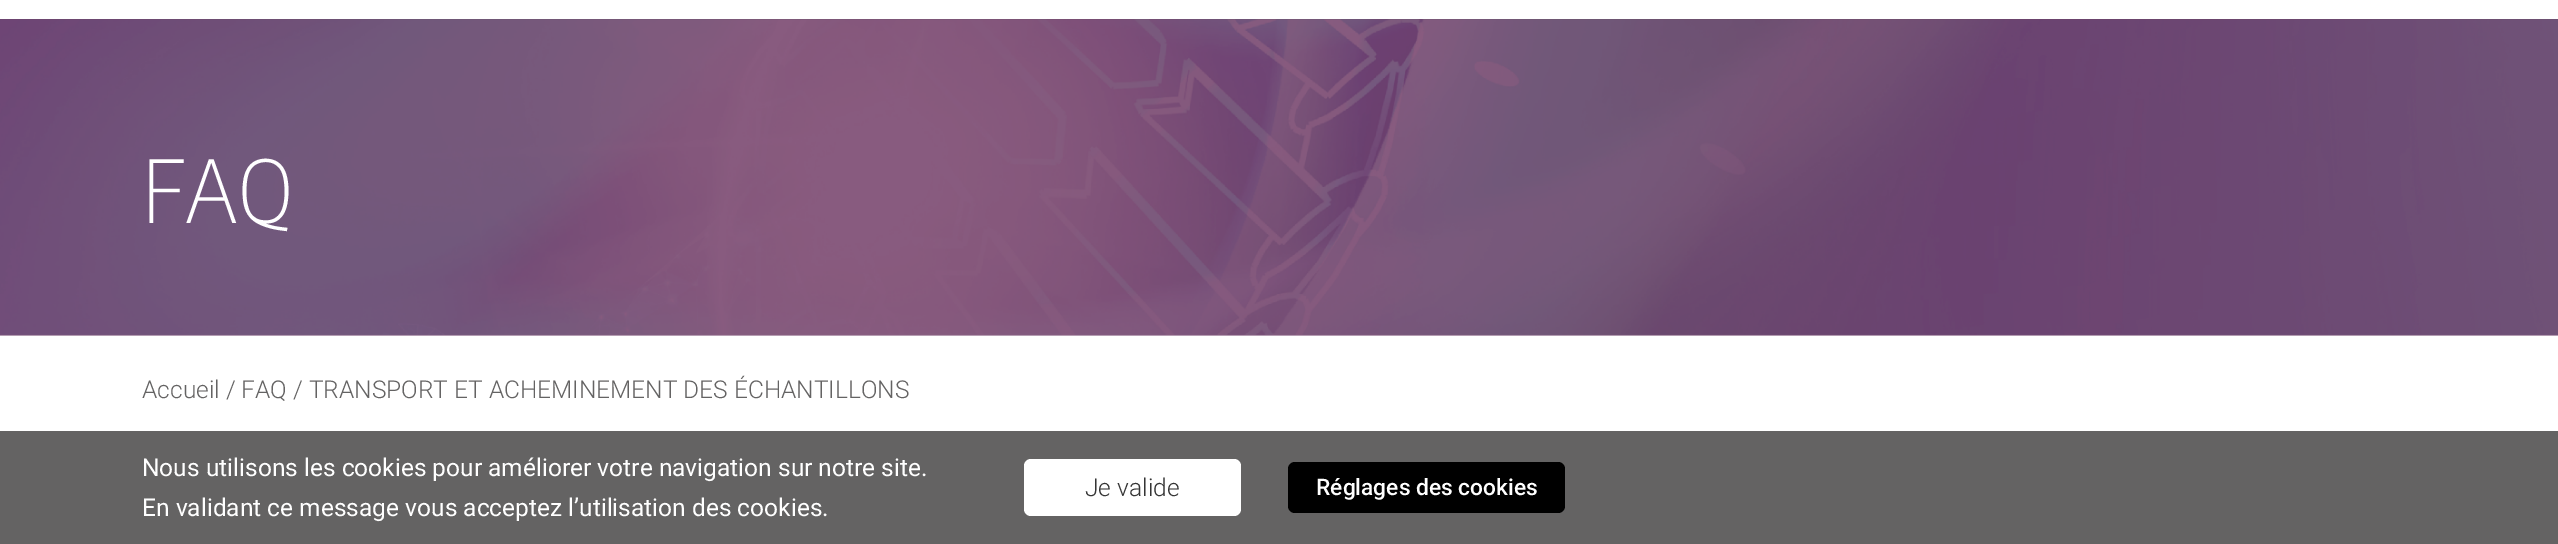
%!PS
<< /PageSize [2558 544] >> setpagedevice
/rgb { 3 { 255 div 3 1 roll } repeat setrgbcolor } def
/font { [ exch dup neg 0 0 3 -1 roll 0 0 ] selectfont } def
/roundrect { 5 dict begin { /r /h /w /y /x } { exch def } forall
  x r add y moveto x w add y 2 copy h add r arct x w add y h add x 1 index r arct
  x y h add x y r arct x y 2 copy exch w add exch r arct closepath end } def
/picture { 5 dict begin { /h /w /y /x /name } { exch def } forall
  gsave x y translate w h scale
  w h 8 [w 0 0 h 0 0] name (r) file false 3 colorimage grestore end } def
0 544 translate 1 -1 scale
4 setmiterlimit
255 255 255 rgb
0 0 2558 544 rectfill
(img/1.rgb) 0 19 2558 317 picture
100 99 99 rgb
0 431 2558 113 rectfill
255 255 255 rgb
1024 459 217 57 7 roundrect fill
0 0 0 rgb
1288 462 277 51 7 roundrect fill
/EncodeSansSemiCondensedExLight-ExtraLight 86 font
255 255 255 rgb
142 223 moveto (FAQ) show
/Roboto-Light 24.5 font
100 99 99 rgb
142 398 moveto (Accueil / FAQ / TRANSPORT ET ACHEMINEMENT DES ÉCHANTILLONS) show
/Roboto-Regular 24.5 font
255 255 255 rgb
142 476 moveto (Nous utilisons les cookies pour améliorer votre navigation sur notre site.) show
/Roboto-Light 24.5 font
53 53 53 rgb
1085 496 moveto (Je valide) show
/Roboto-Medium 22.75 font
255 255 255 rgb
1316 495 moveto (Réglages des cookies) show
/Roboto-Regular 24.5 font
142 516 moveto (En validant ce message vous acceptez l’utilisation des cookies.) show
showpage
